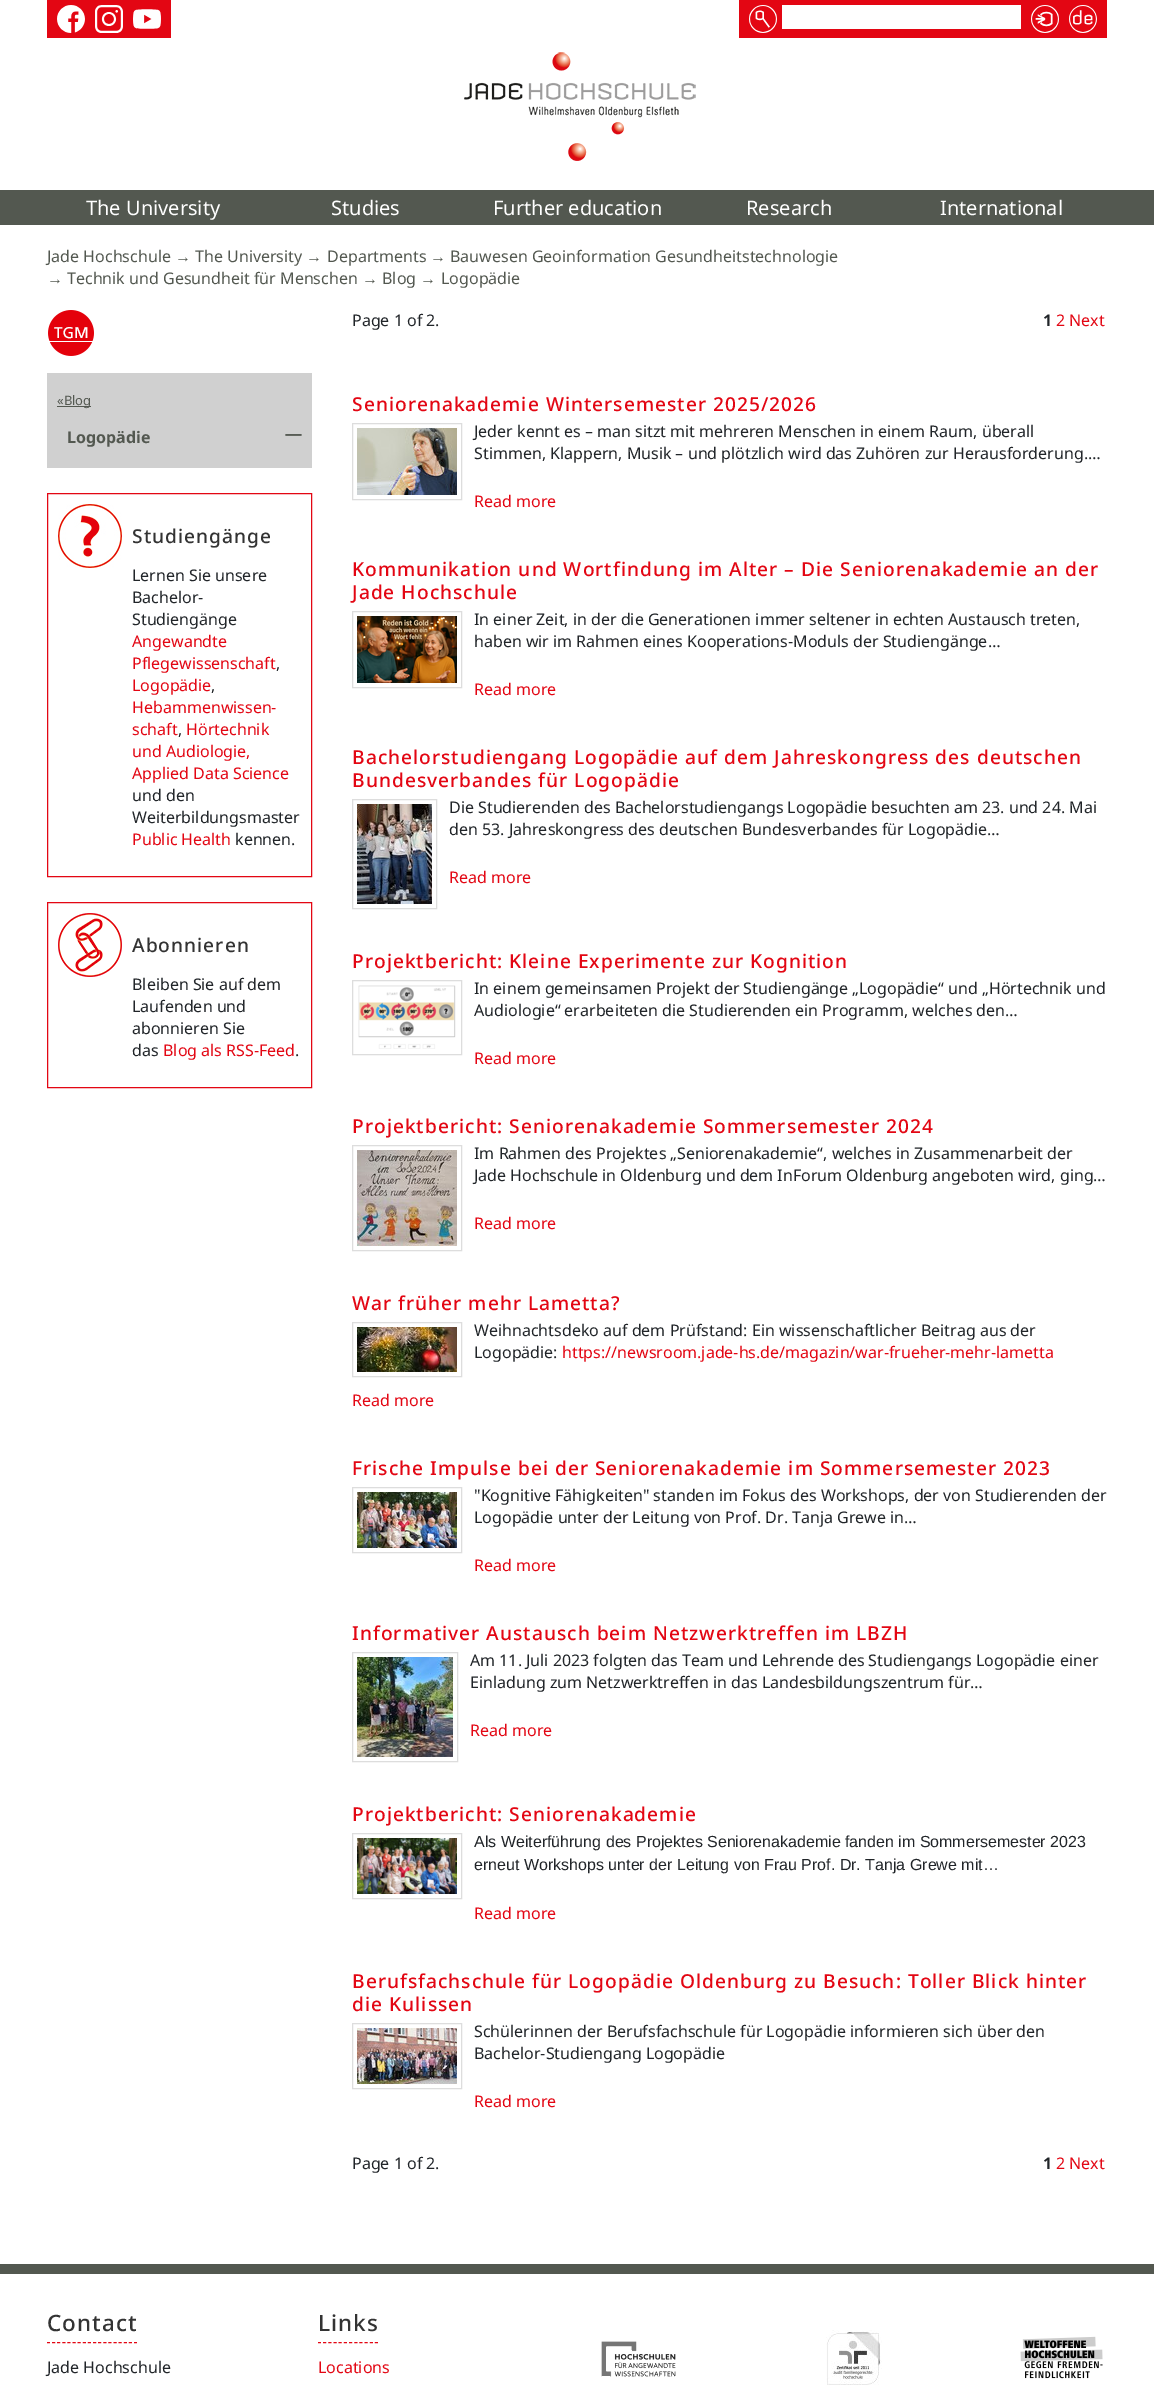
%!PS
<< /PageSize [1154 2390] >> setpagedevice
/rgb { 3 { 255 div 3 1 roll } repeat setrgbcolor } def
/font { [ exch dup neg 0 0 3 -1 roll 0 0 ] selectfont } def
/picture { 5 dict begin { /h /w /y /x /name } { exch def } forall
  gsave x y translate w h scale
  w h 8 [w 0 0 h 0 0] name (r) file false 3 colorimage grestore end } def
0 2390 translate 1 -1 scale
4 setmiterlimit
255 255 255 rgb
0 0 1154 2390 rectfill
227 6 19 rgb
47 0 124 38 rectfill
(img/1.rgb) 57 5 28 28 picture
(img/2.rgb) 95 5 28 28 picture
(img/3.rgb) 133 9 28 20 picture
739 0 368 38 rectfill
(img/4.rgb) 749 5 28 28 picture
255 255 255 rgb
782 5 239 24 rectfill
(img/5.rgb) 1031 5 28 28 picture
(img/6.rgb) 1069 5 28 28 picture
(img/7.rgb) 464 52 232 109 picture
83 88 80 rgb
0 190 1154 35 rectfill
(img/8.rgb) 48 310 46 46 picture
208 208 208 rgb
47 373 265 95 rectfill
83 88 80 rgb
57 406 34 1 rectfill
(img/9.rgb) 285 434 17 2 picture
227 6 19 rgb
47.5 493.5 264 383 rectstroke
(img/10.rgb) 58 504 64 64 picture
47.5 902.5 264 185 rectstroke
(img/11.rgb) 58 913 64 64 picture
221 221 221 rgb
352.5 423.5 109 76 rectstroke
(img/12.rgb) 357 428 100 67 picture
352.5 611.5 109 76 rectstroke
(img/13.rgb) 357 616 100 67 picture
352.5 799.5 84 109 rectstroke
(img/14.rgb) 357 804 75 100 picture
352.5 980.5 109 74 rectstroke
(img/15.rgb) 358 985 98 64 picture
352.5 1145.5 109 105 rectstroke
(img/16.rgb) 357 1150 100 96 picture
352.5 1322.5 109 54 rectstroke
(img/17.rgb) 357 1327 100 45 picture
352.5 1487.5 109 65 rectstroke
(img/18.rgb) 357 1492 100 56 picture
352.5 1652.5 105 109 rectstroke
(img/19.rgb) 357 1657 96 100 picture
352.5 1833.5 109 65 rectstroke
(img/20.rgb) 357 1838 100 56 picture
352.5 2023.5 109 65 rectstroke
(img/21.rgb) 357 2028 100 56 picture
83 88 80 rgb
0 2264 1154 10 rectfill
227 6 19 rgb
[3 2.12] 0 setdash
47 2342.5 moveto 137 2342.5 lineto stroke
[3 2.18] 0 setdash
318 2342.5 moveto 378 2342.5 lineto stroke
(img/22.rgb) 601 2341 75 36 picture
(img/23.rgb) 826 2330 56 55 picture
(img/24.rgb) 1020 2336 83 43 picture
/NotoSans-Regular 20 font
255 255 255 rgb
[
  [(The University) 86 215]
  [(Studies) 331 215]
  [(Further education) 493 215]
  [(Research) 746 215]
  [(International) 940 215]
] { aload pop moveto show } forall
/NotoSans-Regular 16 font
83 88 80 rgb
47 262 moveto (Jade Hochschule) show
/LiberationSans-Regular 16 font
175 262 moveto (→) show
/NotoSans-Regular 16 font
195 262 moveto (The University) show
/LiberationSans-Regular 16 font
306 262 moveto (→) show
/NotoSans-Regular 16 font
327 262 moveto (Departments) show
/LiberationSans-Regular 16 font
430 262 moveto (→) show
/NotoSans-Regular 16 font
450 262 moveto (Bauwesen Geoinformation Gesundheitstechnologie) show
/LiberationSans-Regular 16 font
47 284 moveto (→) show
/NotoSans-Regular 16 font
67 284 moveto (Technik und Gesundheit für Menschen) show
/LiberationSans-Regular 16 font
362 284 moveto (→) show
/NotoSans-Regular 16 font
382 284 moveto (Blog) show
/LiberationSans-Regular 16 font
420 284 moveto (→) show
/NotoSans-Regular 16 font
441 284 moveto (Logopädie) show
/NotoSans-Regular 13 font
57 405 moveto («Blog) show
/NotoSans-Bold 16 font
67 443 moveto (Logopädie) show
/NotoSans-Medium 19.2 font
51 51 51 rgb
132 543 moveto 1 0 (Studiengänge) ashow
/NotoSans-Regular 16 font
33 37 41 rgb
[
  [(Lernen Sie unsere) 132 581]
  [(Bachelor-) 132 603]
  [(Studiengänge) 132 625]
] { aload pop moveto show } forall
227 6 19 rgb
132 647 moveto (Angewandte) show
132 669 moveto (Pflegewissenschaft) show
33 37 41 rgb
276 669 moveto (,) show
227 6 19 rgb
132 691 moveto (Logopädie) show
33 37 41 rgb
211 691 moveto (,) show
227 6 19 rgb
132 713 moveto (Hebammenwissen-) show
132 735 moveto (schaft) show
33 37 41 rgb
178 735 moveto (,) show
227 6 19 rgb
[
  [(Hörtechnik) 186 735]
  [(und Audiologie,) 132 757]
  [(Applied Data Science) 132 779]
] { aload pop moveto show } forall
33 37 41 rgb
132 801 moveto (und den) show
132 823 moveto (Weiterbildungsmaster) show
227 6 19 rgb
132 845 moveto (Public Health) show
33 37 41 rgb
235 845 moveto (kennen.) show
/NotoSans-Medium 19.2 font
51 51 51 rgb
132 952 moveto 1 0 (Abonnieren) ashow
/NotoSans-Regular 16 font
33 37 41 rgb
[
  [(Bleiben Sie auf dem) 132 990]
  [(Laufenden und) 132 1012]
  [(abonnieren Sie) 132 1034]
  [(das) 132 1056]
] { aload pop moveto show } forall
227 6 19 rgb
163 1056 moveto (Blog als RSS-Feed) show
33 37 41 rgb
295 1056 moveto (.) show
352 326 moveto (Page 1 of 2.) show
/NotoSans-Bold 16 font
1043 326 moveto (1) show
/NotoSans-Regular 16 font
227 6 19 rgb
1056 326 moveto (2 Next) show
/NotoSans-Medium 19.2 font
352 411 moveto 1 0 (Seniorenakademie Wintersemester 2025/2026) ashow
/NotoSans-Regular 16 font
33 37 41 rgb
474 437 moveto (Jeder kennt es – man sitzt mit mehreren Menschen in einem Raum, überall) show
474 459 moveto (Stimmen, Klappern, Musik – und plötzlich wird das Zuhören zur Herausforderung.…) show
227 6 19 rgb
474 507 moveto (Read more) show
/NotoSans-Medium 19.2 font
352 576 moveto 1 0 (Kommunikation und Wortfindung im Alter – Die Seniorenakademie an der) ashow
352 599 moveto 1 0 (Jade Hochschule) ashow
/NotoSans-Regular 16 font
33 37 41 rgb
474 625 moveto (In einer Zeit, in der die Generationen immer seltener in echten Austausch treten,) show
474 647 moveto (haben wir im Rahmen eines Kooperations-Moduls der Studiengänge…) show
227 6 19 rgb
474 695 moveto (Read more) show
/NotoSans-Medium 19.2 font
352 764 moveto 1 0 (Bachelorstudiengang Logopädie auf dem Jahreskongress des deutschen) ashow
352 787 moveto 1 0 (Bundesverbandes für Logopädie) ashow
/NotoSans-Regular 16 font
33 37 41 rgb
449 813 moveto (Die Studierenden des Bachelorstudiengangs Logopädie besuchten am 23. und 24. Mai) show
449 835 moveto (den 53. Jahreskongress des deutschen Bundesverbandes für Logopädie…) show
227 6 19 rgb
449 883 moveto (Read more) show
/NotoSans-Medium 19.2 font
352 968 moveto 1 0 (Projektbericht: Kleine Experimente zur Kognition) ashow
/NotoSans-Regular 16 font
33 37 41 rgb
474 994 moveto (In einem gemeinsamen Projekt der Studiengänge „Logopädie“ und „Hörtechnik und) show
474 1016 moveto (Audiologie“ erarbeiteten die Studierenden ein Programm, welches den…) show
227 6 19 rgb
474 1064 moveto (Read more) show
/NotoSans-Medium 19.2 font
352 1133 moveto 1 0 (Projektbericht: Seniorenakademie Sommersemester 2024) ashow
/NotoSans-Regular 16 font
33 37 41 rgb
474 1159 moveto (Im Rahmen des Projektes „Seniorenakademie“, welches in Zusammenarbeit der) show
474 1181 moveto (Jade Hochschule in Oldenburg und dem InForum Oldenburg angeboten wird, ging…) show
227 6 19 rgb
474 1229 moveto (Read more) show
/NotoSans-Medium 19.2 font
352 1310 moveto 1 0 (War früher mehr Lametta?) ashow
/NotoSans-Regular 16 font
33 37 41 rgb
474 1336 moveto (Weihnachtsdeko auf dem Prüfstand: Ein wissenschaftlicher Beitrag aus der) show
474 1358 moveto (Logopädie:) show
227 6 19 rgb
562 1358 moveto (https://newsroom.jade-hs.de/magazin/war-frueher-mehr-lametta) show
352 1406 moveto (Read more) show
/NotoSans-Medium 19.2 font
352 1475 moveto 1 0 (Frische Impulse bei der Seniorenakademie im Sommersemester 2023) ashow
/NotoSans-Regular 16 font
33 37 41 rgb
474 1501 moveto ("Kognitive Fähigkeiten" standen im Fokus des Workshops, der von Studierenden der) show
474 1523 moveto (Logopädie unter der Leitung von Prof. Dr. Tanja Grewe in…) show
227 6 19 rgb
474 1571 moveto (Read more) show
/NotoSans-Medium 19.2 font
352 1640 moveto 1 0 (Informativer Austausch beim Netzwerktreffen im LBZH) ashow
/NotoSans-Regular 16 font
33 37 41 rgb
470 1666 moveto (Am 11. Juli 2023 folgten das Team und Lehrende des Studiengangs Logopädie einer) show
470 1688 moveto (Einladung zum Netzwerktreffen in das Landesbildungszentrum für…) show
227 6 19 rgb
470 1736 moveto (Read more) show
/NotoSans-Medium 19.2 font
352 1821 moveto 1 0 (Projektbericht: Seniorenakademie) ashow
/LiberationSans-Regular 16 font
33 37 41 rgb
474 1847 moveto (Als Weiterführung des Projektes Seniorenakademie fanden im Sommersemester 2023) show
474 1870 moveto (erneut Workshops unter der Leitung von Frau Prof. Dr. Tanja Grewe mit…) show
/NotoSans-Regular 16 font
227 6 19 rgb
474 1919 moveto (Read more) show
/NotoSans-Medium 19.2 font
352 1988 moveto 1 0 (Berufsfachschule für Logopädie Oldenburg zu Besuch: Toller Blick hinter) ashow
352 2011 moveto 1 0 (die Kulissen) ashow
/NotoSans-Regular 16 font
33 37 41 rgb
474 2037 moveto (Schülerinnen der Berufsfachschule für Logopädie informieren sich über den) show
474 2059 moveto (Bachelor-Studiengang Logopädie) show
227 6 19 rgb
474 2107 moveto (Read more) show
33 37 41 rgb
352 2169 moveto (Page 1 of 2.) show
/NotoSans-Bold 16 font
1043 2169 moveto (1) show
/NotoSans-Regular 16 font
227 6 19 rgb
1056 2169 moveto (2 Next) show
/NotoSans-Medium 22.5 font
51 51 51 rgb
47 2331 moveto 1 0 (Contact) ashow
/NotoSans-Regular 16 font
33 37 41 rgb
47 2373 moveto (Jade Hochschule) show
/NotoSans-Medium 22.5 font
51 51 51 rgb
318 2331 moveto 1 0 (Links) ashow
/NotoSans-Regular 16 font
227 6 19 rgb
318 2373 moveto (Locations) show
showpage
